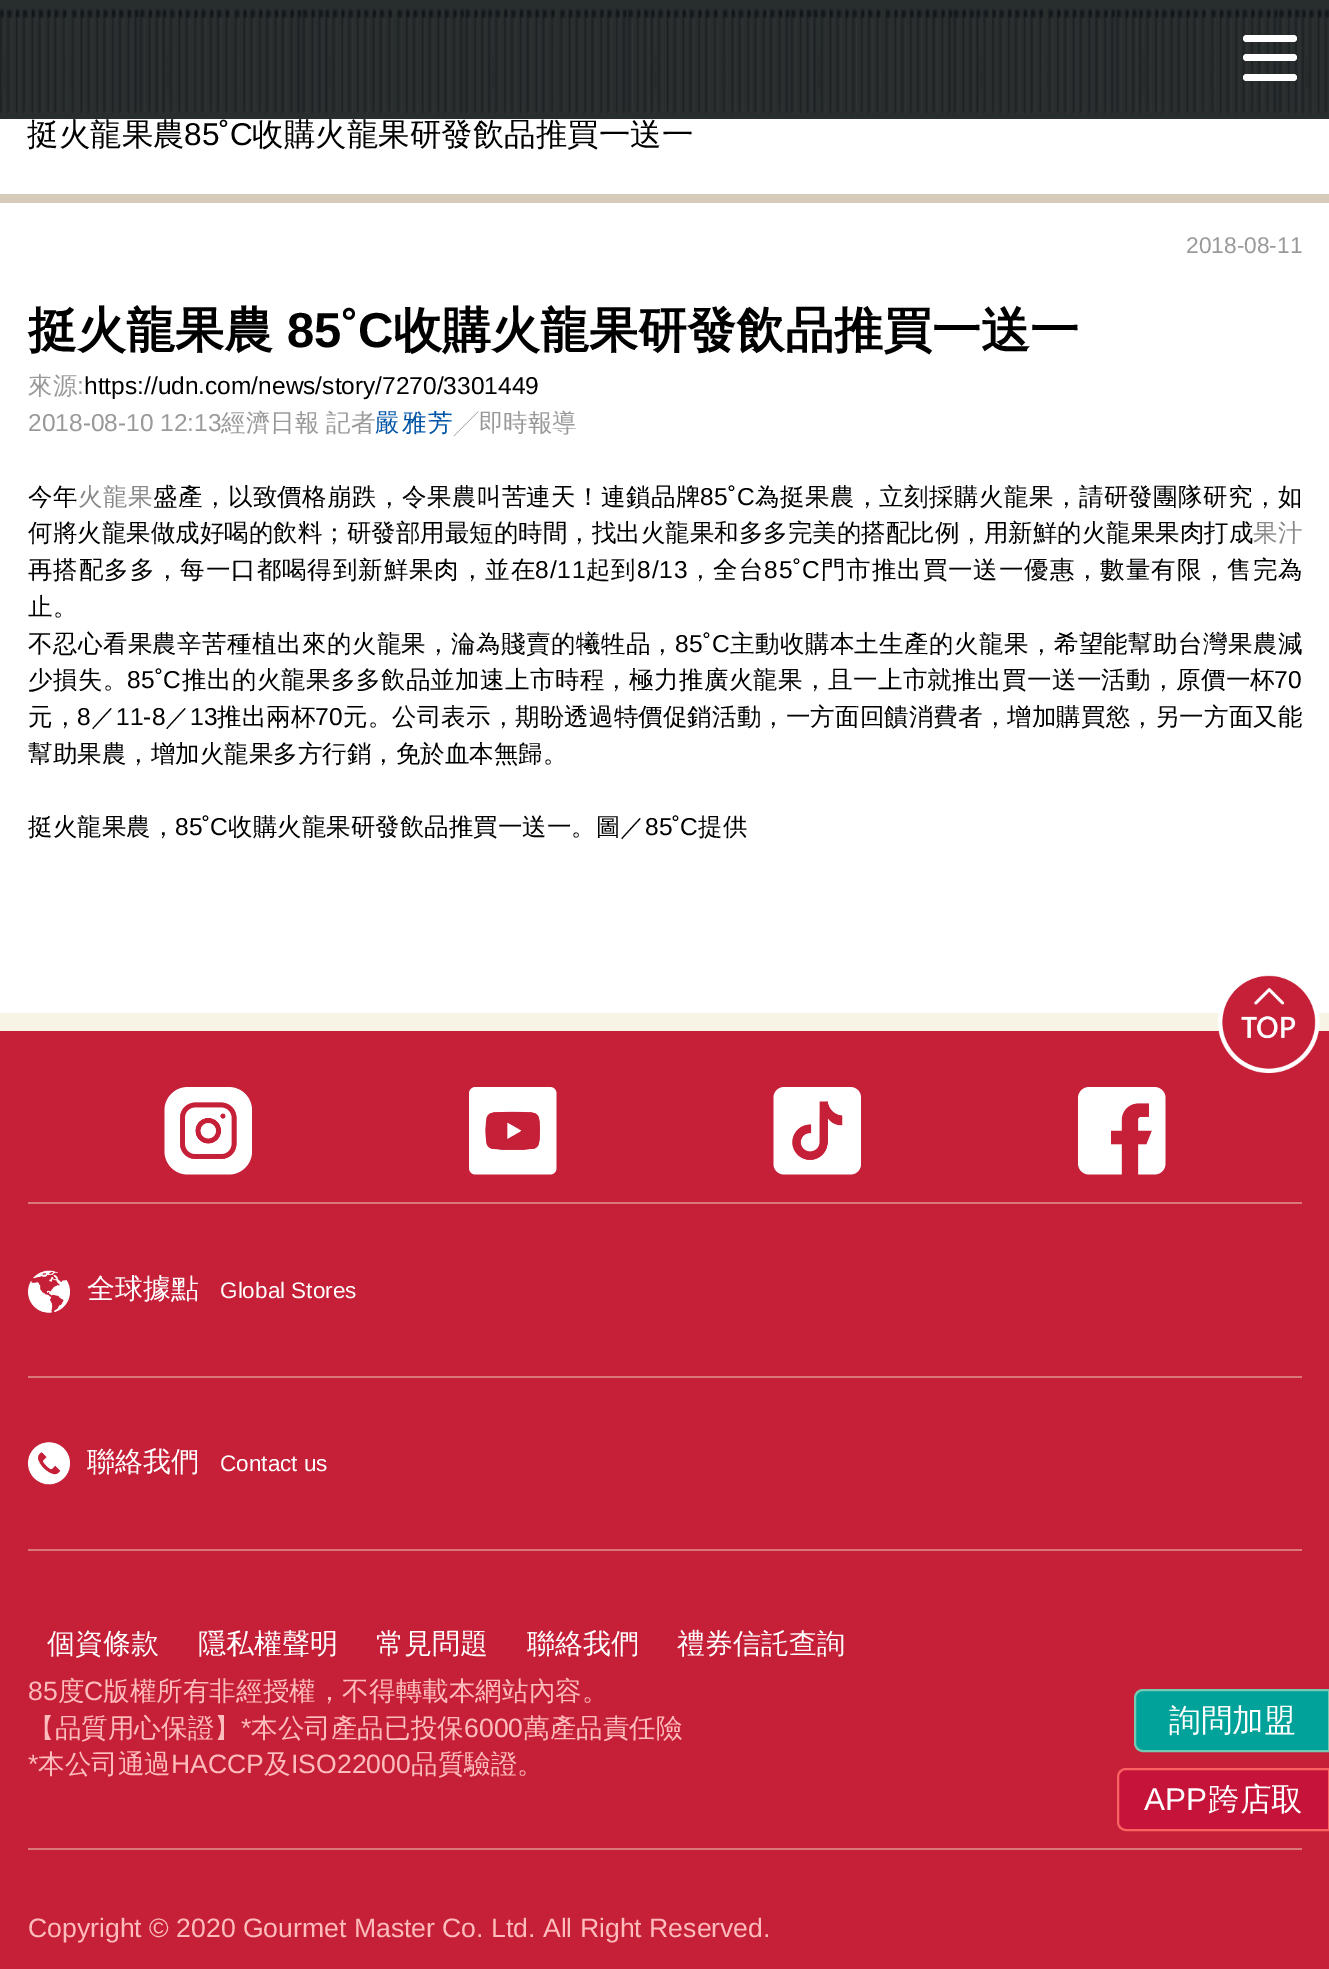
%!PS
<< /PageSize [1329 1969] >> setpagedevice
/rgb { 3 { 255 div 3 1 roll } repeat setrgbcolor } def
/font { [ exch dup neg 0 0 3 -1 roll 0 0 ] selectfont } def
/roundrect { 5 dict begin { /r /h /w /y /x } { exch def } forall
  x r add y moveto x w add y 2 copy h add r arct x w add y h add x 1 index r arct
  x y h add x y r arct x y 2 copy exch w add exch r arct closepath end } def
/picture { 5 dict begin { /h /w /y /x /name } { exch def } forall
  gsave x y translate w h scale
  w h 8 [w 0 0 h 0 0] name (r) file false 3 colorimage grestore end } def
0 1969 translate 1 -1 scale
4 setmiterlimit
247 244 229 rgb
0 0 1329 1969 rectfill
(img/1.rgb) 0 0 1329 119 picture
255 255 255 rgb
1243 35 54 7 3.5 roundrect fill
1243 54 54 7 3.5 roundrect fill
1243 74 54 7 3.5 roundrect fill
[
  [0 119 1329 894 255 255 255]
  [0 194 1329 9 214 202 186]
  [0 1031 1329 938 198 31 56]
] { aload pop rgb rectfill } forall
(img/2.rgb) 1218 975 102 98 picture
(img/3.rgb) 164 1087 88 88 picture
(img/4.rgb) 469 1087 88 88 picture
(img/5.rgb) 773 1087 88 88 picture
(img/6.rgb) 1078 1087 88 88 picture
216 120 120 rgb
28 1202 1274 2 rectfill
(img/7.rgb) 28 1270 42 43 picture
28 1376 1274 2 rectfill
(img/8.rgb) 28 1442 42 43 picture
28 1549 1274 2 rectfill
28 1848 1274 2 rectfill
0 162 154 rgb
1143 1690 moveto 1329 1690 lineto 1329 1751 lineto 1143 1751 lineto 1138.5 1751 1135 1747.5 1135 1743 curveto 1135 1698 lineto 1135 1693.5 1138.5 1690 1143 1690 curveto closepath gsave fill grestore
117 202 179 rgb
2 setlinewidth
stroke
198 19 58 rgb
1126 1769 moveto 1329 1769 lineto 1329 1830 lineto 1126 1830 lineto 1121.5 1830 1118 1826.5 1118 1822 curveto 1118 1777 lineto 1118 1772.5 1121.5 1769 1126 1769 curveto closepath gsave fill grestore
251 99 99 rgb
stroke
/WenQuanYiZenHei-Medium 31.5 font
0 0 0 rgb
27 145 moveto (挺火龍果農) show
/LiberationSans-Regular 31.5 font
184 145 moveto (85˚C) show
/WenQuanYiZenHei-Medium 31.5 font
252 145 moveto (收購火龍果研發飲品推買一送一) show
/LiberationSans-Regular 22.75 font
153 153 153 rgb
1186 253 moveto (2018-08-11) show
/WenQuanYiZenHei-Bold 49 font
0 0 0 rgb
28 347 moveto (挺火龍果農) show
/LiberationSans-Bold 49 font
287 347 moveto (85˚C) show
/WenQuanYiZenHei-Bold 49 font
393 347 moveto (收購火龍果研發飲品推買一送一) show
/WenQuanYiZenHei-Medium 24.5 font
153 153 153 rgb
28 394 moveto (來源) show
/LiberationSans-Regular 24.5 font
77 394 moveto (:) show
0 0 0 rgb
84 394 moveto (https://udn.com/news/story/7270/3301449) show
153 153 153 rgb
28 431 moveto (2018-08-10 12:13) show
/WenQuanYiZenHei-Medium 24.5 font
221 431 moveto (經濟日報) show
326 431 moveto (記者) show
0 84 166 rgb
375 431 moveto 2 0 (嚴雅芳) ashow
153 153 153 rgb
454 431 moveto (╱即時報導) show
0 0 0 rgb
28 505 moveto (今年) show
136 136 136 rgb
78 505 moveto 0.5 0 (火龍果) ashow
0 0 0 rgb
153 505 moveto 0.4 0 (盛產，以致價格崩跌，令果農叫苦連天！連鎖品牌) ashow
/LiberationSans-Regular 24.5 font
700 505 moveto 0.4 0 (85˚C) ashow
/WenQuanYiZenHei-Medium 24.5 font
755 505 moveto 0.4 0 (為挺果農，立刻採購火龍果，請研發團隊研究，如) ashow
28 541 moveto (何將火龍果做成好喝的飲料；研發部用最短的時間，找出火龍果和多多完美的搭配比例，用新鮮的火龍果果肉打成) show
136 136 136 rgb
1253 541 moveto (果汁) show
0 0 0 rgb
28 578 moveto 0.9 0 (再搭配多多，每一口都喝得到新鮮果肉，並在) ashow
/LiberationSans-Regular 24.5 font
535 578 moveto 0.9 0 (8/11) ashow
/WenQuanYiZenHei-Medium 24.5 font
586 578 moveto 0.9 0 (起到) ashow
/LiberationSans-Regular 24.5 font
637 578 moveto 0.9 0 (8/13) ashow
/WenQuanYiZenHei-Medium 24.5 font
688 578 moveto 0.9 0 (，全台) ashow
/LiberationSans-Regular 24.5 font
764 578 moveto 0.9 0 (85˚C) ashow
/WenQuanYiZenHei-Medium 24.5 font
821 578 moveto 0.9 0 (門市推出買一送一優惠，數量有限，售完為) ashow
28 615 moveto (止。) show
28 652 moveto 0.4 0 (不忍心看果農辛苦種植出來的火龍果，淪為賤賣的犧牲品，) ashow
/LiberationSans-Regular 24.5 font
675 652 moveto 0.4 0 (85˚C) ashow
/WenQuanYiZenHei-Medium 24.5 font
730 652 moveto 0.4 0 (主動收購本土生產的火龍果，希望能幫助台灣果農減) ashow
28 688 moveto 0.35 0 (少損失。) ashow
/LiberationSans-Regular 24.5 font
127 688 moveto 0.35 0 (85˚C) ashow
/WenQuanYiZenHei-Medium 24.5 font
182 688 moveto 0.35 0 (推出的火龍果多多飲品並加速上市時程，極力推廣火龍果，且一上市就推出買一送一活動，原價一杯) ashow
/LiberationSans-Regular 24.5 font
1274 688 moveto 0.35 0 (70) ashow
/WenQuanYiZenHei-Medium 24.5 font
28 725 moveto 0.1 0 (元，) ashow
/LiberationSans-Regular 24.5 font
77 725 moveto 0.1 0 (8) ashow
/WenQuanYiZenHei-Medium 24.5 font
91 725 moveto 0.1 0 (／) ashow
/LiberationSans-Regular 24.5 font
116 725 moveto 0.1 0 (11-8) ashow
/WenQuanYiZenHei-Medium 24.5 font
165 725 moveto 0.1 0 (／) ashow
/LiberationSans-Regular 24.5 font
190 725 moveto 0.1 0 (13) ashow
/WenQuanYiZenHei-Medium 24.5 font
217 725 moveto 0.1 0 (推出兩杯) ashow
/LiberationSans-Regular 24.5 font
315 725 moveto 0.1 0 (70) ashow
/WenQuanYiZenHei-Medium 24.5 font
343 725 moveto 0.1 0 (元。公司表示，期盼透過特價促銷活動，一方面回饋消費者，增加購買慾，另一方面又能) ashow
28 762 moveto (幫助果農，增加火龍果多方行銷，免於血本無歸。) show
28 835 moveto (挺火龍果農，) show
/LiberationSans-Regular 24.5 font
175 835 moveto (85˚C) show
/WenQuanYiZenHei-Medium 24.5 font
228 835 moveto (收購火龍果研發飲品推買一送一。圖／) show
/LiberationSans-Regular 24.5 font
645 835 moveto (85˚C) show
/WenQuanYiZenHei-Medium 24.5 font
698 835 moveto (提供) show
/WenQuanYiZenHei-Medium 28 font
255 255 255 rgb
87 1298 moveto (全球據點) show
/LiberationSans-Regular 22.5 font
220 1298 moveto (Global Stores) show
/WenQuanYiZenHei-Medium 28 font
87 1471 moveto (聯絡我們) show
/LiberationSans-Regular 22.5 font
220 1471 moveto (Contact us) show
/WenQuanYiZenHei-Medium 28 font
[
  [(個資條款) 47 1653]
  [(隱私權聲明) 198 1653]
  [(常見問題) 376 1653]
  [(聯絡我們) 527 1653]
  [(禮券信託查詢) 677 1653]
] { aload pop moveto show } forall
/LiberationSans-Regular 26.6 font
255 188 188 rgb
28 1700 moveto (85) show
/WenQuanYiZenHei-Medium 26.6 font
58 1700 moveto (度) show
/LiberationSans-Regular 26.6 font
84 1700 moveto (C) show
/WenQuanYiZenHei-Medium 26.6 font
103 1700 moveto (版權所有非經授權，不得轉載本網站內容。) show
28 1737 moveto (【品質用心保證】) show
/LiberationSans-Regular 26.6 font
241 1737 moveto (*) show
/WenQuanYiZenHei-Medium 26.6 font
251 1737 moveto (本公司產品已投保) show
/LiberationSans-Regular 26.6 font
464 1737 moveto (6000) show
/WenQuanYiZenHei-Medium 26.6 font
523 1737 moveto (萬產品責任險) show
/LiberationSans-Regular 26.6 font
28 1773 moveto (*) show
/WenQuanYiZenHei-Medium 26.6 font
38 1773 moveto (本公司通過) show
/LiberationSans-Regular 26.6 font
171 1773 moveto (HACCP) show
/WenQuanYiZenHei-Medium 26.6 font
264 1773 moveto (及) show
/LiberationSans-Regular 26.6 font
291 1773 moveto (ISO22000) show
/WenQuanYiZenHei-Medium 26.6 font
411 1773 moveto (品質驗證。) show
/LiberationSans-Regular 26.6 font
28 1937 moveto (Copyright © 2020 Gourmet Master Co. Ltd. All Right Reserved.) show
/WenQuanYiZenHei-Medium 31.5 font
255 255 255 rgb
1169 1731 moveto (詢問加盟) show
/LiberationSans-Regular 31.5 font
1144 1810 moveto (APP) show
/WenQuanYiZenHei-Medium 31.5 font
1208 1810 moveto (跨店取) show
showpage
